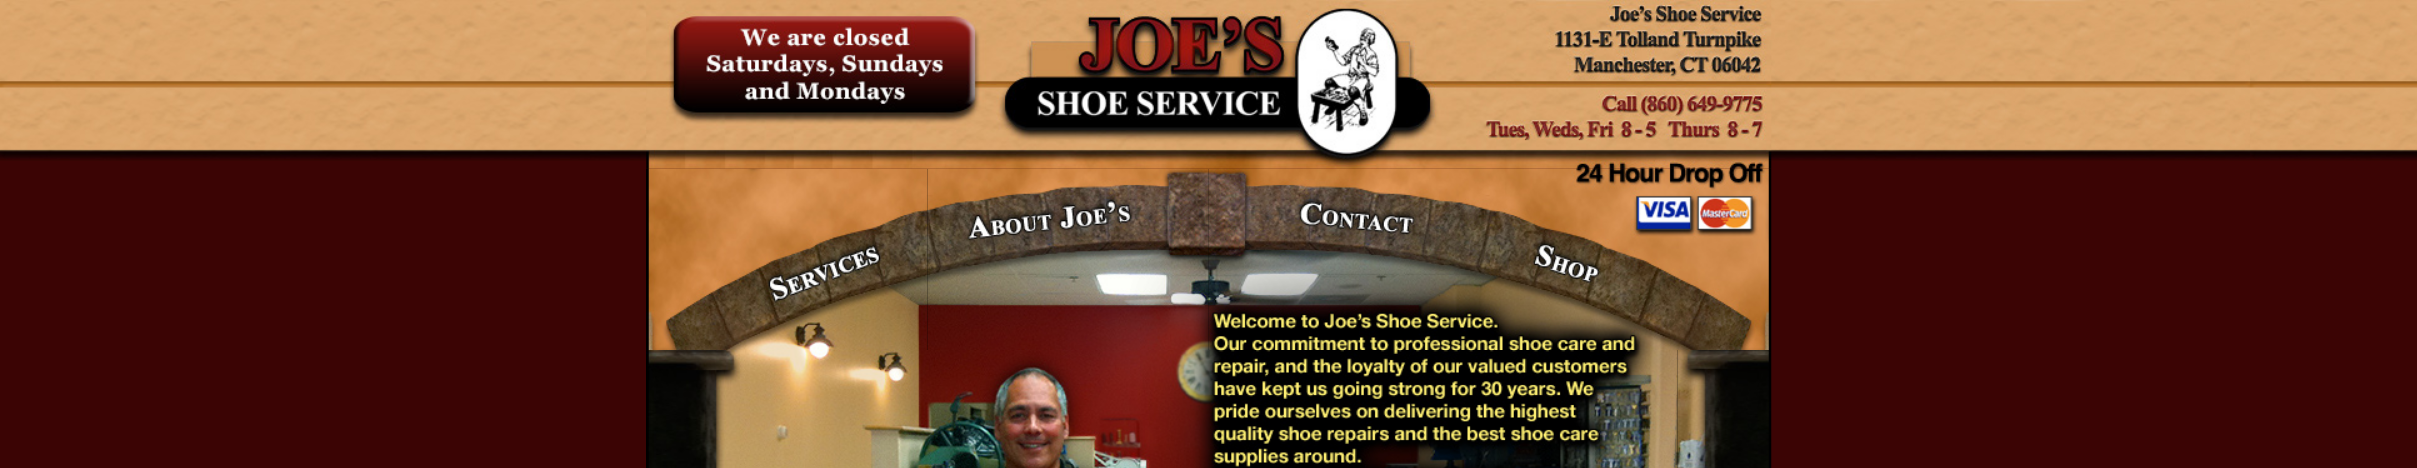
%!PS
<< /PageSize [2417 468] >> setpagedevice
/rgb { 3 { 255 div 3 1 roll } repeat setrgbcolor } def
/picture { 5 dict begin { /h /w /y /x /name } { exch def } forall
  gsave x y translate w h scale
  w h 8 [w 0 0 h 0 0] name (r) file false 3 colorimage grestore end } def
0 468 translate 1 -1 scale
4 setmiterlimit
59 4 4 rgb
0 0 2417 468 rectfill
(img/1.rgb) 0 0 2417 161 picture
(img/2.rgb) 646 0 1126 169 picture
(img/3.rgb) 646 168 282 182 picture
(img/4.rgb) 927 168 282 182 picture
(img/5.rgb) 1208 168 282 182 picture
(img/6.rgb) 1490 168 282 182 picture
(img/7.rgb) 646 350 94 118 picture
(img/8.rgb) 740 350 938 118 picture
(img/9.rgb) 1677 350 95 118 picture
showpage
